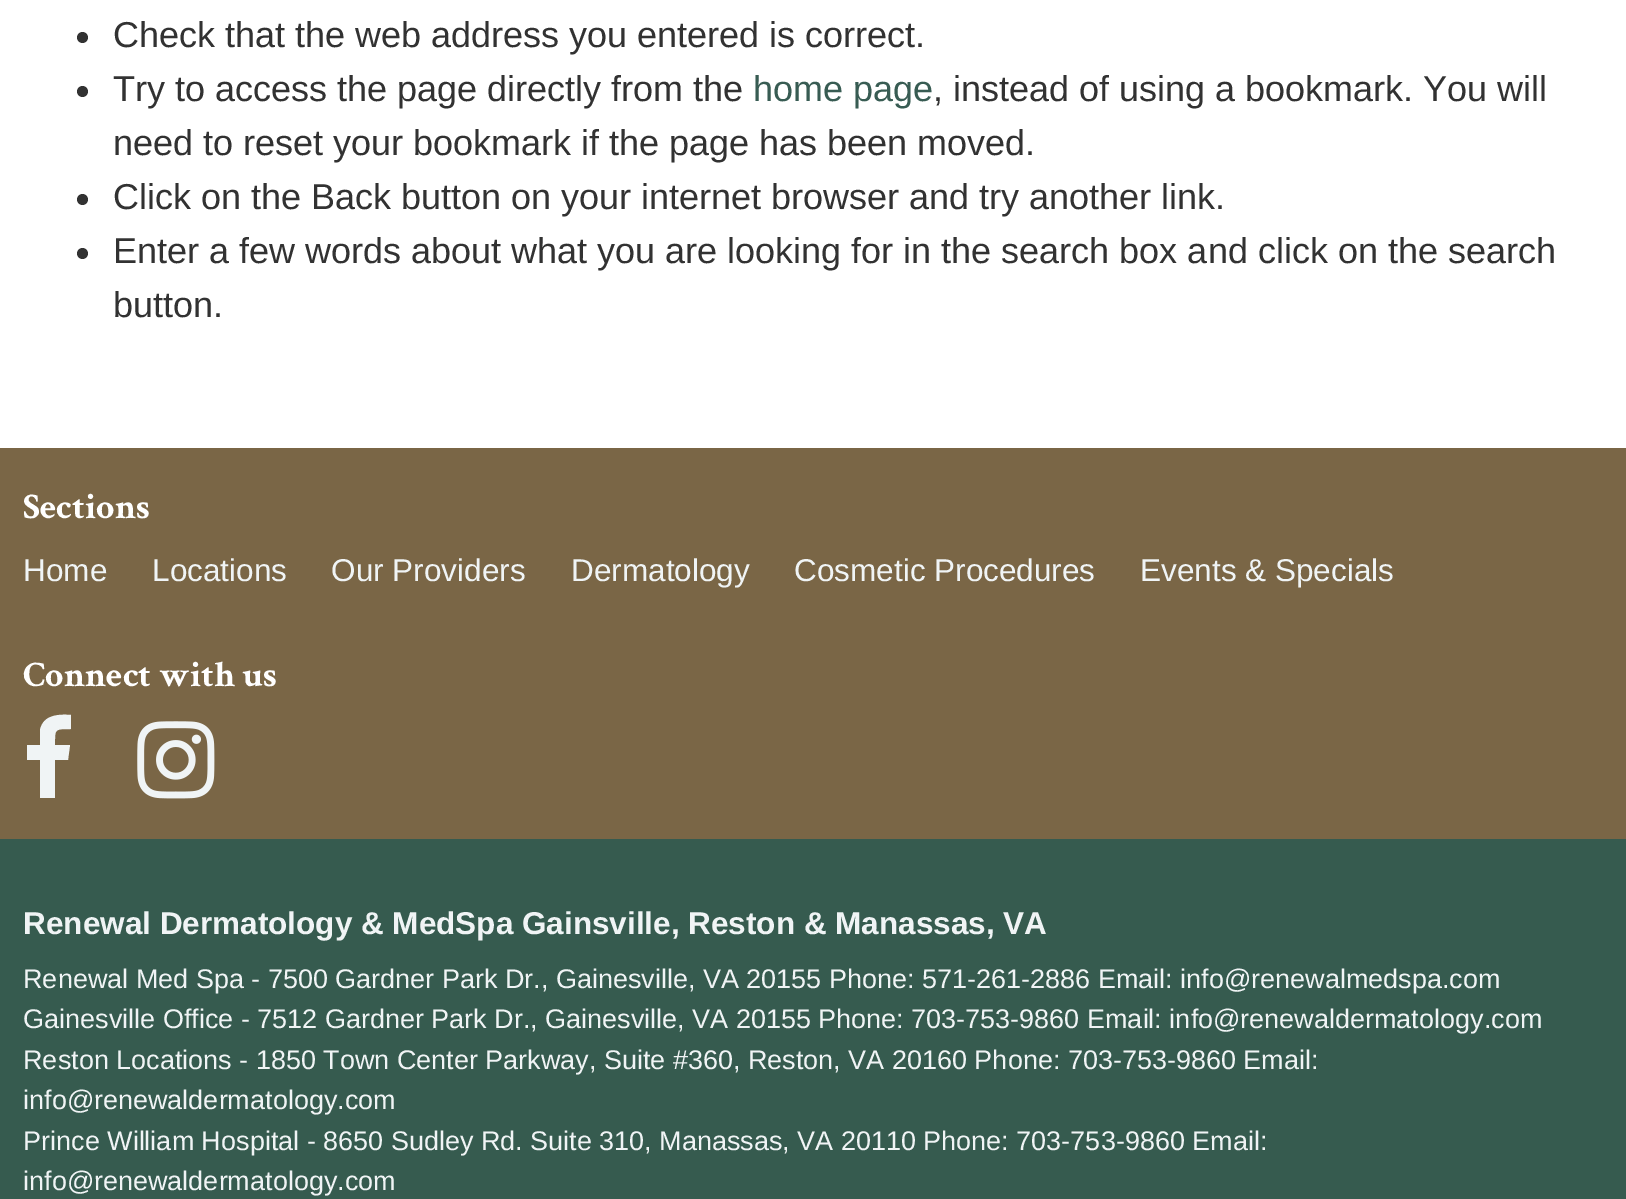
%!PS
<< /PageSize [1626 1199] >> setpagedevice
/rgb { 3 { 255 div 3 1 roll } repeat setrgbcolor } def
/font { [ exch dup neg 0 0 3 -1 roll 0 0 ] selectfont } def
/circle { newpath 0 360 arc closepath } def
/picture { 5 dict begin { /h /w /y /x /name } { exch def } forall
  gsave x y translate w h scale
  w h 8 [w 0 0 h 0 0] name (r) file false 3 colorimage grestore end } def
0 1199 translate 1 -1 scale
4 setmiterlimit
255 255 255 rgb
0 0 1626 1199 rectfill
50 50 50 rgb
82.5 37.5 5.5 circle fill
82.5 91.5 5.5 circle fill
82.5 199.5 5.5 circle fill
82.5 253.5 5.5 circle fill
122 102 70 rgb
0 448 1626 391 rectfill
240 244 245 rgb
71 715 moveto 71 729 lineto 54 729 55 729 55 745 curveto 70 745 lineto 68 760 lineto 55 760 lineto 55 798 lineto 40 798 lineto 40 760 lineto 27 760 lineto 27 745 lineto 40 745 lineto 40 730 lineto 43 715 58 714 71 715 curveto closepath fill
(img/1.rgb) 137 721 78 78 picture
54 91 79 rgb
0 839 1626 360 rectfill
/LiberationSans-Regular 36 font
50 50 50 rgb
113 47 moveto (Check that the web address you entered is correct.) show
113 101 moveto (Try to access the page directly from the) show
56 92 83 rgb
753 101 moveto (home page) show
50 50 50 rgb
[
  [(, instead of using a bookmark. You will) 933 101]
  [(need to reset your bookmark if the page has been moved.) 113 155]
  [(Click on the Back button on your internet browser and try another link.) 113 209]
  [(Enter a few words about what you are looking for in the search box and click on the search) 113 263]
  [(button.) 113 317]
] { aload pop moveto show } forall
/CrimsonText-Bold 36 font
255 255 255 rgb
23 518 moveto (Sections) show
/LiberationSans-Regular 31.5 font
240 244 245 rgb
[
  [(Home) 23 581]
  [(Locations) 152 581]
  [(Our Providers) 331 581]
  [(Dermatology) 571 581]
  [(Cosmetic Procedures) 794 581]
  [(Events & Specials) 1140 581]
] { aload pop moveto show } forall
/CrimsonText-Bold 36 font
255 255 255 rgb
23 686 moveto (Connect with us) show
/LiberationSans-Bold 31.5 font
240 244 245 rgb
23 934 moveto (Renewal Dermatology & MedSpa Gainsville, Reston & Manassas, VA) show
/LiberationSans-Regular 27 font
[
  [(Renewal Med Spa - 7500 Gardner Park Dr., Gainesville, VA 20155 Phone: 571-261-2886 Email: info@renewalmedspa.com) 23 988]
  [(Gainesville Office - 7512 Gardner Park Dr., Gainesville, VA 20155 Phone: 703-753-9860 Email: info@renewaldermatology.com) 23 1028]
  [(Reston Locations - 1850 Town Center Parkway, Suite #360, Reston, VA 20160 Phone: 703-753-9860 Email:) 23 1069]
  [(info@renewaldermatology.com) 23 1109]
  [(Prince William Hospital - 8650 Sudley Rd. Suite 310, Manassas, VA 20110 Phone: 703-753-9860 Email:) 23 1150]
  [(info@renewaldermatology.com) 23 1190]
] { aload pop moveto show } forall
showpage
